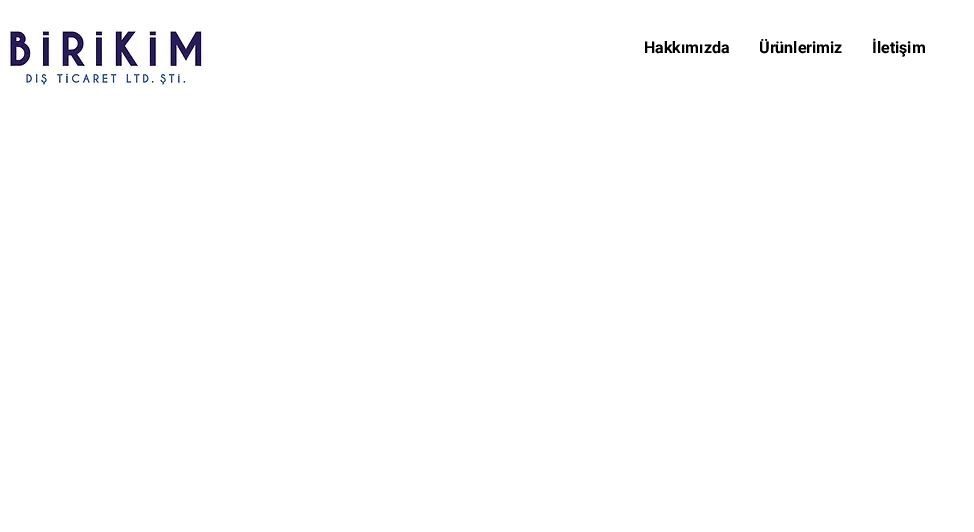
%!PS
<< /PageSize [974 532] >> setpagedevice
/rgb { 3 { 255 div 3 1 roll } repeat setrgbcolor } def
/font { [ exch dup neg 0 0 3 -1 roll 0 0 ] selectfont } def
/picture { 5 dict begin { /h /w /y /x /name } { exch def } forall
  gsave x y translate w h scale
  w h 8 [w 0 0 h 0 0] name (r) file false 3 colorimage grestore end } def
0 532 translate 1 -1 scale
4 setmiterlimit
255 255 255 rgb
0 0 974 532 rectfill
(img/1.rgb) 8 29 196 57 picture
/Roboto-Bold 16 font
0 0 0 rgb
[
  [(Hakkımızda) 644 53]
  [(Ürünlerimiz) 759 53]
  [(İletişim) 872 53]
] { aload pop moveto show } forall
showpage
